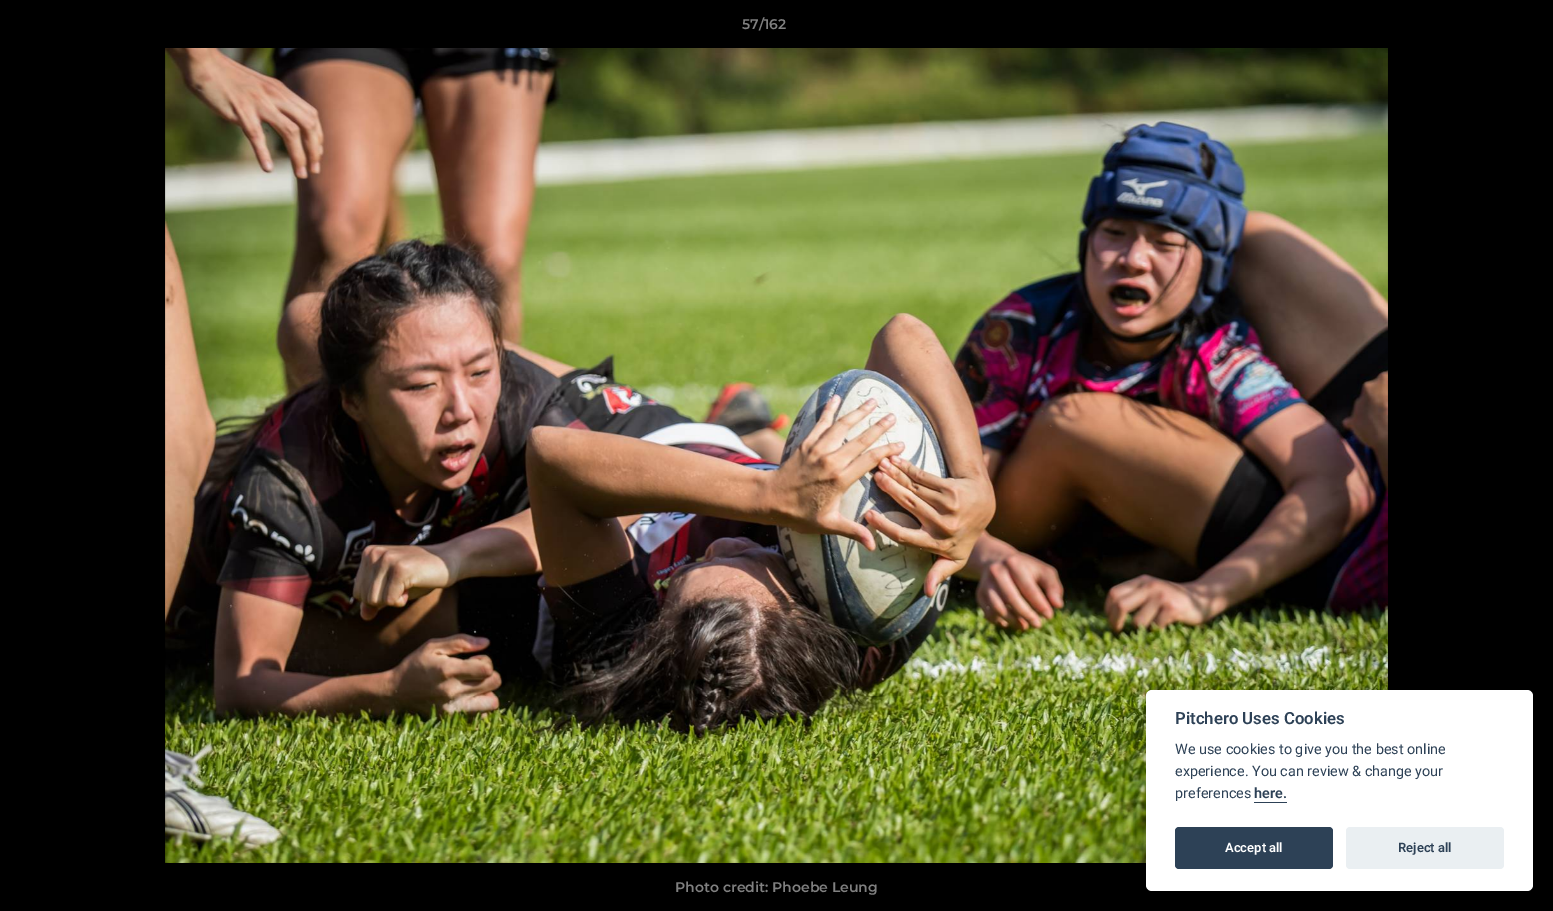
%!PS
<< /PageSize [1553 911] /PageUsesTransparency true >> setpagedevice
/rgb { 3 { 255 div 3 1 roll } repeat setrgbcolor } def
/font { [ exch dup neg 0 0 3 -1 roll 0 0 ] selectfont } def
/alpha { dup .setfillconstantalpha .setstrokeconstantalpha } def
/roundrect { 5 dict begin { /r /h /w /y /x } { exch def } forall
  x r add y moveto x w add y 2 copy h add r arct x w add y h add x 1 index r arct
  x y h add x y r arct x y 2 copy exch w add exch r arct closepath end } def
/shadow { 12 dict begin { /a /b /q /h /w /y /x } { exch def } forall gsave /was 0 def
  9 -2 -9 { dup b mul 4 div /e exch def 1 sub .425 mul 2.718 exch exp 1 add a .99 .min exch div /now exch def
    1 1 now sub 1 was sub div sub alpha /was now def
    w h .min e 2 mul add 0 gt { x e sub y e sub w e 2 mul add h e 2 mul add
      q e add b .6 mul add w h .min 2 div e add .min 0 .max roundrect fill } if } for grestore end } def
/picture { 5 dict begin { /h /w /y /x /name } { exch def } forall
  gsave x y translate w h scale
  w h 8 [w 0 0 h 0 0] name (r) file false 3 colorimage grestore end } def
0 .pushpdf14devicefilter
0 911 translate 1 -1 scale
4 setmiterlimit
0 0 0 rgb
0 0 1553 911 rectfill
(img/1.rgb) 165 48 1223 815 picture
2 2 3 rgb
1146 700 387 201 6 15 0.28 shadow
255 255 255 rgb
1146 690 387 201 6 roundrect fill
45 65 86 rgb
1254 802 33 1 rectfill
1175 827 158 42 4 roundrect fill
234 239 242 rgb
1346 827 158 42 4 roundrect fill
/Montserrat-SemiBold 14 font
128 128 128 rgb
742 29 moveto (57/162) show
675 892 moveto (Photo credit: Phoebe Leung) show
/Roboto-SemiBold 16.75 font
45 65 86 rgb
1175 724 moveto (Pitchero Uses Cookies) show
/Roboto-Regular 14.4 font
[
  [(We use cookies to give you the best online) 1175 754]
  [(experience. You can review & change your) 1175 776]
  [(preferences) 1175 798]
] { aload pop moveto show } forall
/Roboto-SemiBold 14.4 font
1254 798 moveto (here.) show
/Roboto-SemiBold 13 font
255 255 255 rgb
1225 852 moveto (Accept all) show
45 65 86 rgb
1398 852 moveto (Reject all) show
.poppdf14devicefilter showpage
